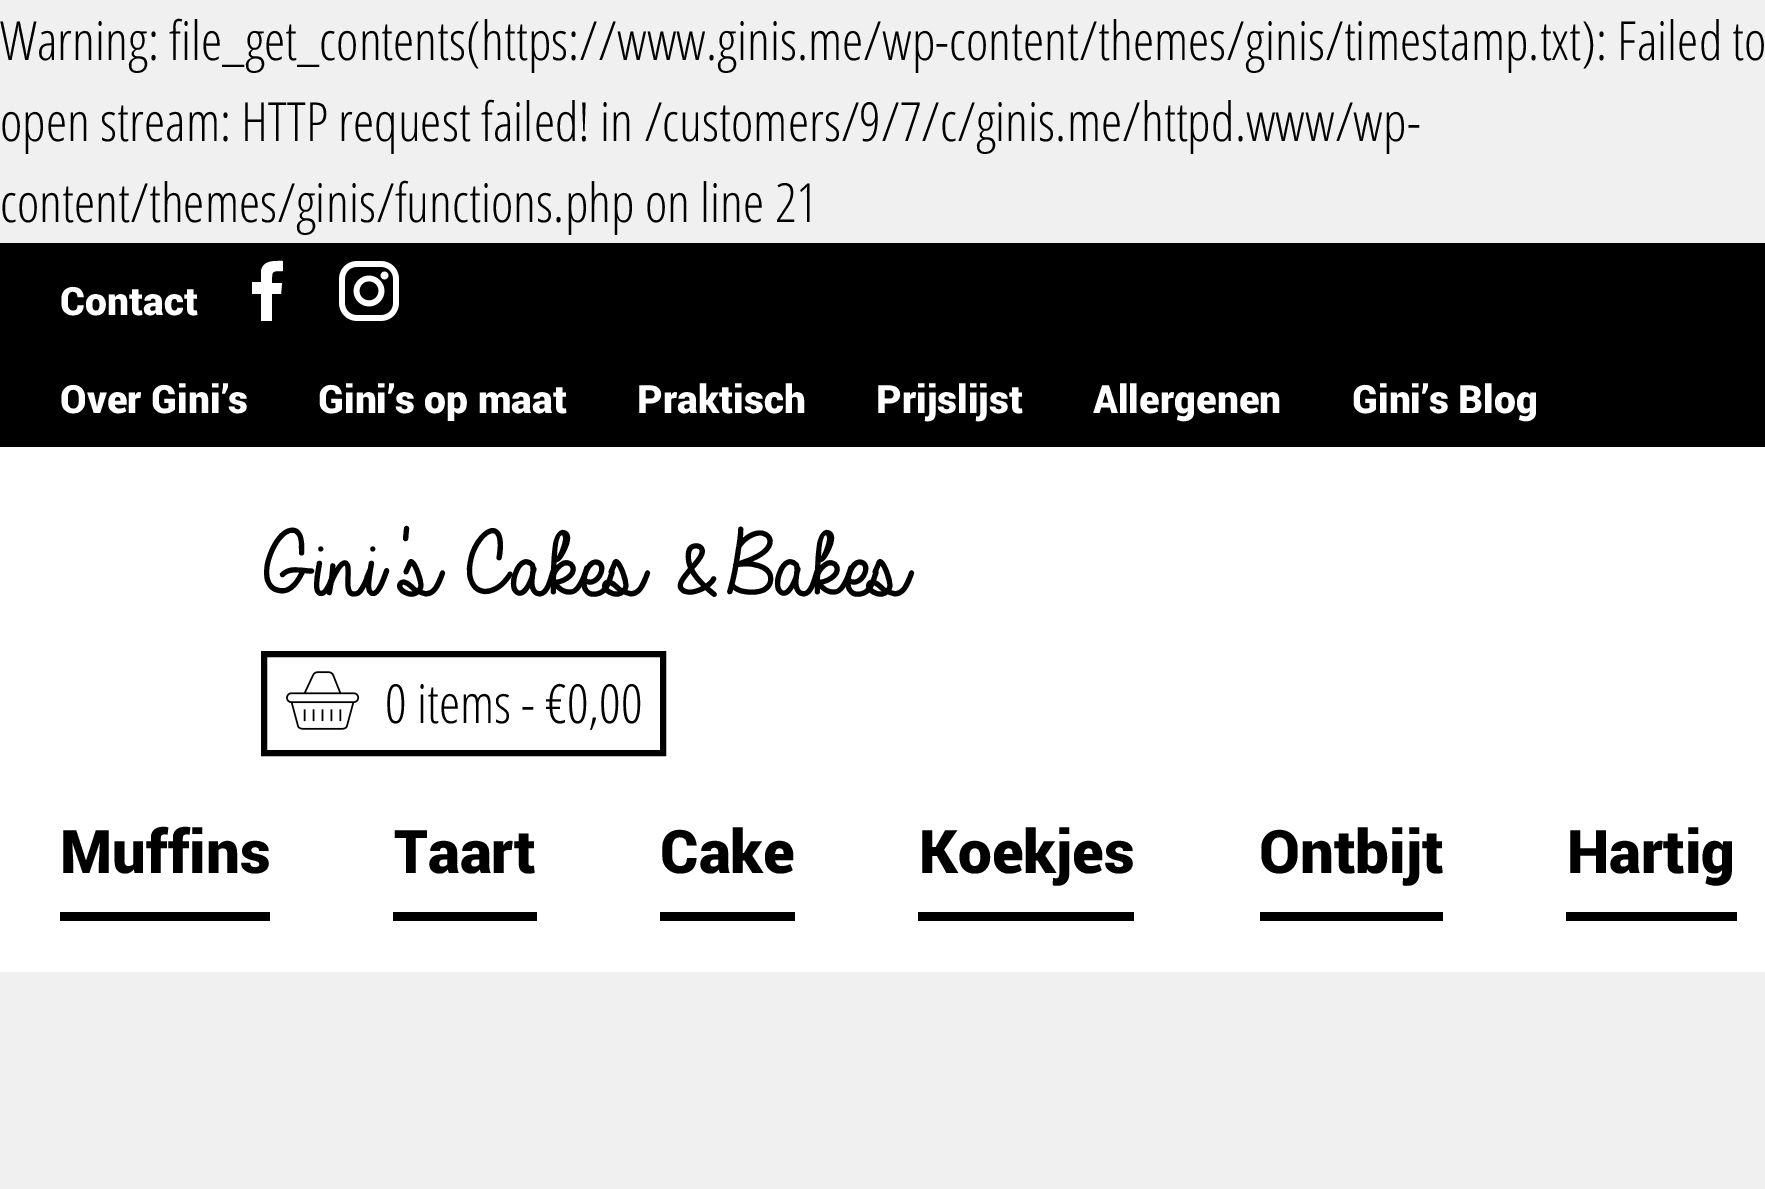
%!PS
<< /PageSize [1765 1189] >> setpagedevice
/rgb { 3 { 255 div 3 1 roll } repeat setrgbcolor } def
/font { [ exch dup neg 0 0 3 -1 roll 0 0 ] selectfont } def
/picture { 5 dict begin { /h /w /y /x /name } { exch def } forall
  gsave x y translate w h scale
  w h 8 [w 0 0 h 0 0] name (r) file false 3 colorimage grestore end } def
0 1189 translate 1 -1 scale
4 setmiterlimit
240 240 240 rgb
0 0 1765 1189 rectfill
0 0 0 rgb
0 243 1765 204 rectfill
255 255 255 rgb
281 294 moveto 282 283 lineto 272 283 lineto 272 271 271 271 283 271 curveto 283 261 lineto 274 261 263 260 261 271 curveto 261 282 lineto 252 282 lineto 252 294 lineto 261 294 lineto 261 321 lineto 272 321 lineto 272 294 lineto closepath fill
(img/1.rgb) 339 261 60 60 picture
0 447 1765 525 rectfill
0 0 0 rgb
6 setlinewidth
264 654 399 99 rectstroke
(img/2.rgb) 286 671 74 59 picture
[
  [60 912 210 9 0 0 0]
  [393 912 144 9 0 0 0]
  [660 912 135 9 0 0 0]
  [918 912 216 9 0 0 0]
  [1260 912 183 9 0 0 0]
  [1566 912 171 9 0 0 0]
] { aload pop rgb rectfill } forall
/OpenSans-Light 54 font
[
  [(Warning: file_get_contents\(https://www.ginis.me/wp-content/themes/ginis/timestamp.txt\): Failed to) 0 60]
  [(open stream: HTTP request failed! in /customers/9/7/c/ginis.me/httpd.www/wp-) 0 141]
  [(content/themes/ginis/functions.php on line 21) 0 222]
] { aload pop moveto show } forall
/Roboto-Black 39 font
255 255 255 rgb
[
  [(Contact) 60 315]
  [(Over Gini’s) 60 413]
  [(Gini’s op maat) 318 413]
  [(Praktisch) 637 413]
  [(Prijslijst) 876 413]
  [(Allergenen) 1093 413]
  [(Gini’s Blog) 1352 413]
] { aload pop moveto show } forall
/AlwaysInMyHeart-Medium 99 font
0 0 0 rgb
240 594 moveto (Gini's Cakes & Bakes) show
/OpenSans-Light 54 font
385 723 moveto (0 items - €0,00) show
/Roboto-Black 60 font
[
  [(Muffins) 60 873]
  [(Taart) 394 873]
  [(Cake) 660 873]
  [(Koekjes) 919 873]
  [(Ontbijt) 1259 873]
  [(Hartig) 1567 873]
] { aload pop moveto show } forall
showpage
